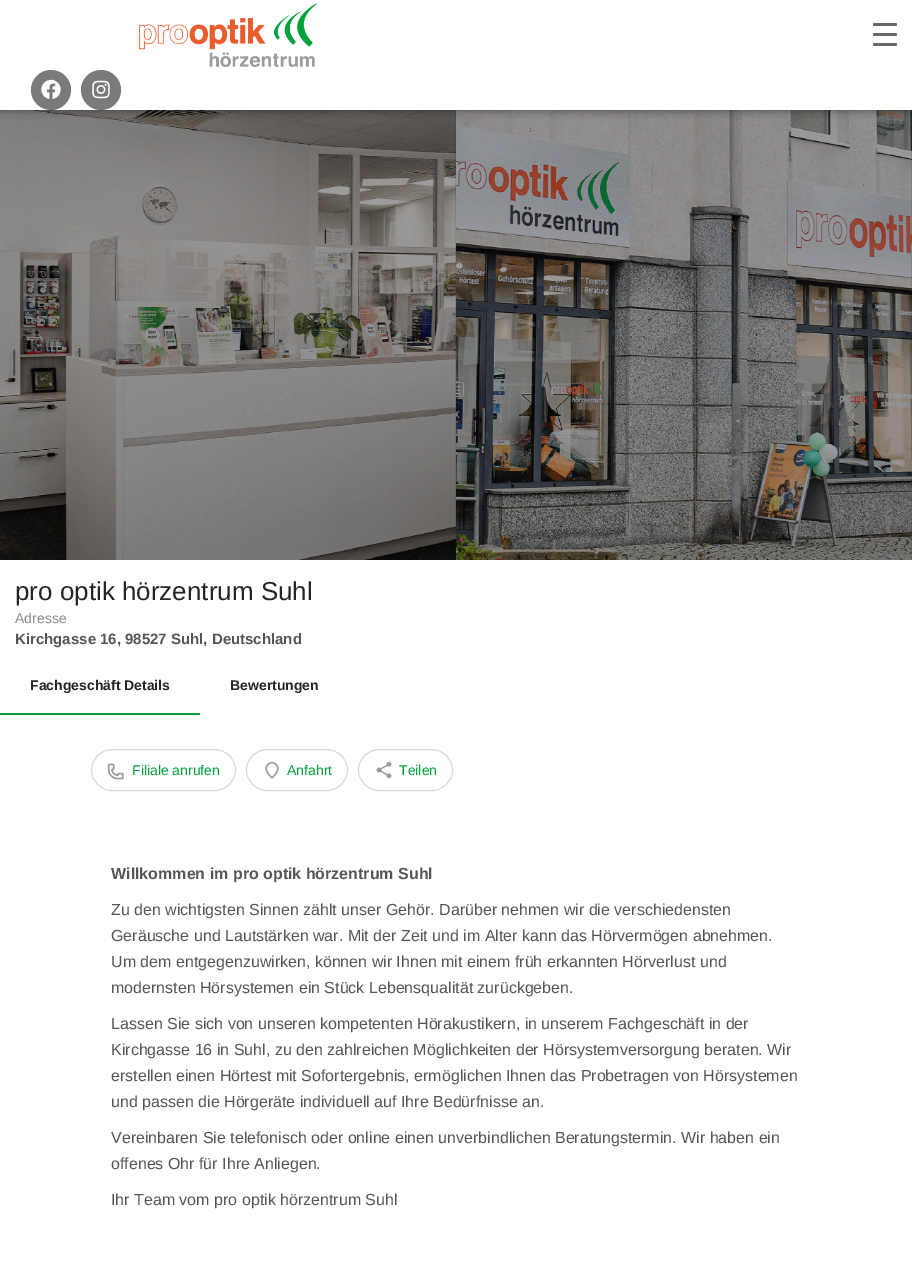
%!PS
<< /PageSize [912 1267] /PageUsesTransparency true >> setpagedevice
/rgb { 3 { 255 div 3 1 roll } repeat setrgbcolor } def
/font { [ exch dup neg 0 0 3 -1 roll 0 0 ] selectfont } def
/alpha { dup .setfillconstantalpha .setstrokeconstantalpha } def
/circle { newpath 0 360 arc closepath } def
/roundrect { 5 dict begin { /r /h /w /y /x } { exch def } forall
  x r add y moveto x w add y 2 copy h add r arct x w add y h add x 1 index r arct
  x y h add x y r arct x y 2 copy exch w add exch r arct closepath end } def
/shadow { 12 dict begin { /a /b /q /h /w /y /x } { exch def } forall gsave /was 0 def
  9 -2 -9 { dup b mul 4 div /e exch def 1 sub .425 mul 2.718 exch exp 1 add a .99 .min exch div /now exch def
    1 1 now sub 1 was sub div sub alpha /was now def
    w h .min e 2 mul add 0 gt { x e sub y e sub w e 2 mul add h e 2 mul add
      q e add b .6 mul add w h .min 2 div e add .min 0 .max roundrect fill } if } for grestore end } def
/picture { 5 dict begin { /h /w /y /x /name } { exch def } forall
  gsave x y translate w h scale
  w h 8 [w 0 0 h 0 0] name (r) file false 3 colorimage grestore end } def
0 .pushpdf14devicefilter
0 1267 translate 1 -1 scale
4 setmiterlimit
255 255 255 rgb
0 0 912 1267 rectfill
(img/4.rgb) 0 110 456 450 picture
(img/5.rgb) 456 110 456 450 picture
gsave
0 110 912 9 rectclip
0 0 0 rgb
0 0 912 110 0 5 0.5 shadow
grestore
(img/1.rgb) 139 3 179 64 picture
104 104 104 rgb
873 33 24 3 1.5 roundrect fill
873 23 24 3 1.5 roundrect fill
873 43 24 3 1.5 roundrect fill
122 122 122 rgb
51 90 20 circle fill
(img/2.rgb) 41 79 20 20 picture
101 90 20 circle fill
(img/3.rgb) 92 80 18 19 picture
1 161 57 rgb
0 713 200 2 rectfill
217 217 217 rgb
91.5 749.5 144 41 20.5 roundrect stroke
(img/6.rgb) 107 763 17 17 picture
246.5 749.5 101 41 20.5 roundrect stroke
(img/7.rgb) 265 762 14 17 picture
358.5 749.5 94 41 20.5 roundrect stroke
(img/8.rgb) 376 761 16 18 picture
/LiberationSans-Regular 26 font
36 36 41 rgb
15 600 moveto (pro optik hörzentrum Suhl) show
/LiberationSans-Regular 14 font
136 136 136 rgb
15 623 moveto (Adresse) show
/LiberationSans-Bold 15 font
85 85 85 rgb
15 644 moveto (Kirchgasse 16, 98527 Suhl, Deutschland) show
/LiberationSans-Bold 14 font
36 36 41 rgb
30 690 moveto (Fachgeschäft Details) show
230 690 moveto (Bewertungen) show
/LiberationSans-Regular 14 font
0 161 58 rgb
[
  [(Filiale anrufen) 132 775]
  [(Anfahrt) 287 775]
  [(Teilen) 399 775]
] { aload pop moveto show } forall
/LiberationSans-Bold 16 font
85 85 85 rgb
111 879 moveto (Willkommen im pro optik hörzentrum Suhl) show
/LiberationSans-Regular 16 font
[
  [(Zu den wichtigsten Sinnen zählt unser Gehör. Darüber nehmen wir die verschiedensten) 111 915]
  [(Geräusche und Lautstärken war. Mit der Zeit und im Alter kann das Hörvermögen abnehmen.) 111 941]
  [(Um dem entgegenzuwirken, können wir Ihnen mit einem früh erkannten Hörverlust und) 111 967]
  [(modernsten Hörsystemen ein Stück Lebensqualität zurückgeben.) 111 993]
  [(Lassen Sie sich von unseren kompetenten Hörakustikern, in unserem Fachgeschäft in der) 111 1029]
  [(Kirchgasse 16 in Suhl, zu den zahlreichen Möglichkeiten der Hörsystemversorgung beraten. Wir) 111 1055]
  [(erstellen einen Hörtest mit Sofortergebnis, ermöglichen Ihnen das Probetragen von Hörsystemen) 111 1081]
  [(und passen die Hörgeräte individuell auf Ihre Bedürfnisse an.) 111 1107]
  [(Vereinbaren Sie telefonisch oder online einen unverbindlichen Beratungstermin. Wir haben ein) 111 1143]
  [(offenes Ohr für Ihre Anliegen.) 111 1169]
  [(Ihr Team vom pro optik hörzentrum Suhl) 111 1205]
] { aload pop moveto show } forall
.poppdf14devicefilter showpage
